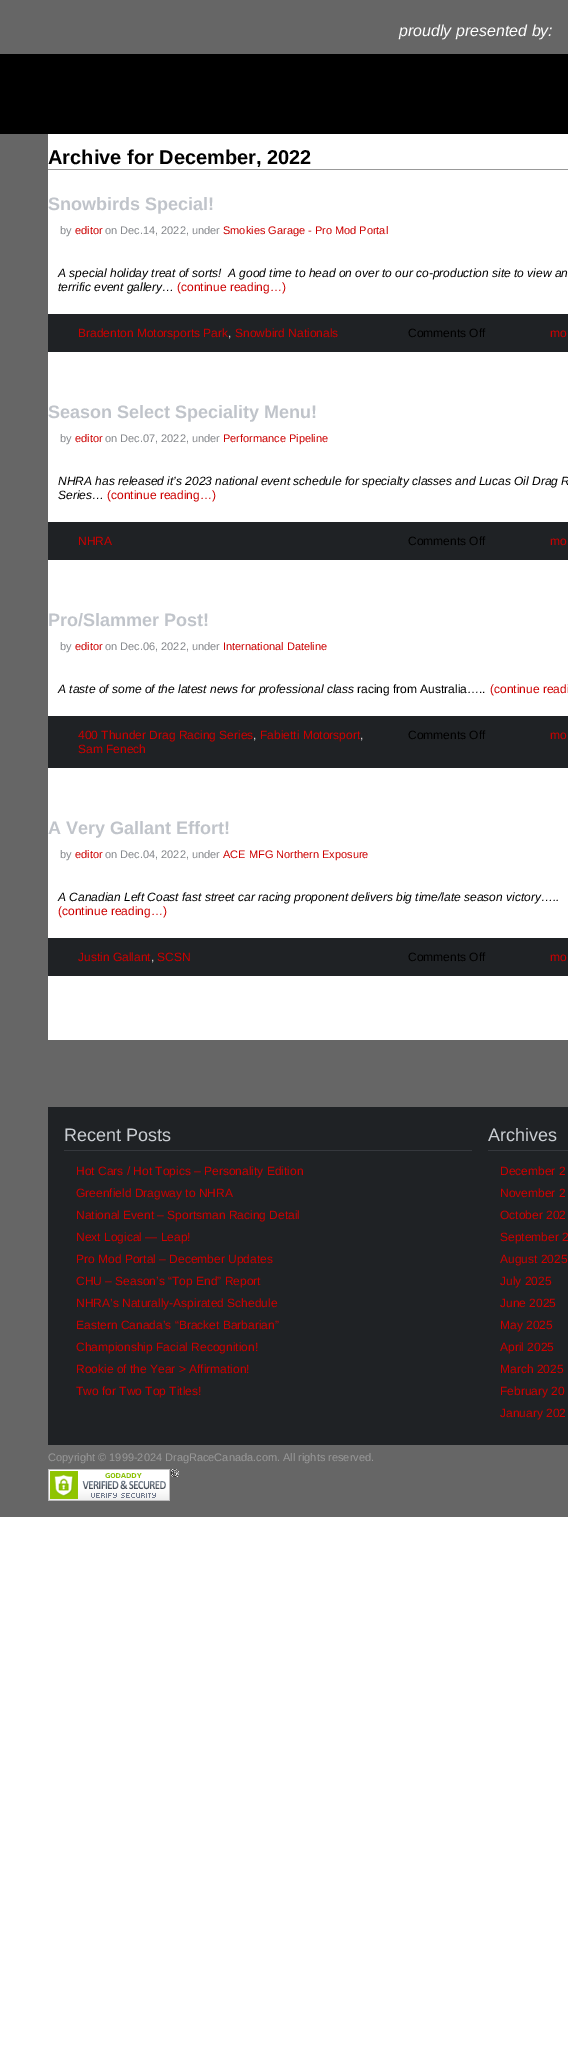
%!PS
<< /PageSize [568 2066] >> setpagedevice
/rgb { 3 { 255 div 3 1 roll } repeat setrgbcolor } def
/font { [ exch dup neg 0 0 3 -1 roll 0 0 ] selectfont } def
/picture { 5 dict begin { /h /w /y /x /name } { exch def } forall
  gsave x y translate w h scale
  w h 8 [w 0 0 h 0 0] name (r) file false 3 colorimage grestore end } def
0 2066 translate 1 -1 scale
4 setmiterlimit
255 255 255 rgb
0 0 568 2066 rectfill
[
  [0 0 568 1517 102 102 102]
  [0 54 568 80 0 0 0]
  [48 134 520 906 255 255 255]
  [48 169 520 1 153 153 153]
  [48 314 520 38 31 34 37]
  [48 522 520 38 31 34 37]
  [48 716 520 52 31 34 37]
  [48 938 520 38 31 34 37]
  [48 1107 520 338 31 34 37]
  [64 1150 408 1 53 56 61]
  [488 1150 80 1 53 56 61]
] { aload pop rgb rectfill } forall
(img/1.rgb) 48 1469 131 32 picture
/LiberationSans-Italic 16 font
255 255 255 rgb
399 36 moveto (proudly presented by:) show
/LiberationSans-Bold 20 font
0 0 0 rgb
48 164 moveto (Archive for December, 2022) show
/LiberationSans-Bold 18 font
192 196 202 rgb
48 210 moveto (Snowbirds Special!) show
/LiberationSans-Regular 11 font
132 135 139 rgb
60 234 moveto (by) show
204 0 0 rgb
75 234 moveto (editor) show
132 135 139 rgb
105 234 moveto (on Dec.14, 2022, under) show
204 0 0 rgb
223 234 moveto (Smokies Garage - Pro Mod Portal) show
/LiberationSans-Italic 12 font
0 0 0 rgb
58 277 moveto (A special holiday treat of sorts!  A good time to head on over to our co-production site to view an) show
58 291 moveto (terrific event gallery…) show
/LiberationSans-Regular 12 font
204 0 0 rgb
177 291 moveto (\(continue reading…\)) show
78 337 moveto (Bradenton Motorsports Park) show
204 204 204 rgb
228 337 moveto (,) show
204 0 0 rgb
235 337 moveto (Snowbird Nationals) show
0 0 0 rgb
408 337 moveto (Comments Off) show
204 0 0 rgb
550 337 moveto (mo) show
/LiberationSans-Bold 18 font
192 196 202 rgb
48 418 moveto (Season Select Speciality Menu!) show
/LiberationSans-Regular 11 font
132 135 139 rgb
60 442 moveto (by) show
204 0 0 rgb
75 442 moveto (editor) show
132 135 139 rgb
105 442 moveto (on Dec.07, 2022, under) show
204 0 0 rgb
223 442 moveto (Performance Pipeline) show
/LiberationSans-Italic 12 font
0 0 0 rgb
58 485 moveto (NHRA has released it’s 2023 national event schedule for specialty classes and Lucas Oil Drag R) show
58 499 moveto (Series…) show
/LiberationSans-Regular 12 font
204 0 0 rgb
107 499 moveto (\(continue reading…\)) show
78 545 moveto (NHRA) show
0 0 0 rgb
408 545 moveto (Comments Off) show
204 0 0 rgb
550 545 moveto (mo) show
/LiberationSans-Bold 18 font
192 196 202 rgb
48 626 moveto (Pro/Slammer Post!) show
/LiberationSans-Regular 11 font
132 135 139 rgb
60 650 moveto (by) show
204 0 0 rgb
75 650 moveto (editor) show
132 135 139 rgb
105 650 moveto (on Dec.06, 2022, under) show
204 0 0 rgb
223 650 moveto (International Dateline) show
/LiberationSans-Italic 12 font
0 0 0 rgb
58 693 moveto (A taste of some of the latest news for professional class) show
/LiberationSans-Regular 12 font
357 693 moveto (racing from Australia…..) show
204 0 0 rgb
490 693 moveto (\(continue readi) show
78 739 moveto (400 Thunder Drag Racing Series) show
204 204 204 rgb
253 739 moveto (,) show
204 0 0 rgb
260 739 moveto (Fabietti Motorsport) show
204 204 204 rgb
360 739 moveto (,) show
204 0 0 rgb
78 753 moveto (Sam Fenech) show
0 0 0 rgb
408 739 moveto (Comments Off) show
204 0 0 rgb
550 739 moveto (mo) show
/LiberationSans-Bold 18 font
192 196 202 rgb
48 834 moveto (A Very Gallant Effort!) show
/LiberationSans-Regular 11 font
132 135 139 rgb
60 858 moveto (by) show
204 0 0 rgb
75 858 moveto (editor) show
132 135 139 rgb
105 858 moveto (on Dec.04, 2022, under) show
204 0 0 rgb
223 858 moveto (ACE MFG Northern Exposure) show
/LiberationSans-Italic 12 font
0 0 0 rgb
58 901 moveto (A Canadian Left Coast fast street car racing proponent delivers big time/late season victory…..) show
/LiberationSans-Regular 12 font
204 0 0 rgb
58 915 moveto (\(continue reading…\)) show
78 961 moveto (Justin Gallant) show
204 204 204 rgb
151 961 moveto (,) show
204 0 0 rgb
157 961 moveto (SCSN) show
0 0 0 rgb
408 961 moveto (Comments Off) show
204 0 0 rgb
550 961 moveto (mo) show
/LiberationSans-Regular 18 font
202 206 211 rgb
64 1141 moveto (Recent Posts) show
/LiberationSans-Regular 12 font
204 0 0 rgb
[
  [(Hot Cars / Hot Topics – Personality Edition) 76 1175]
  [(Greenfield Dragway to NHRA) 76 1197]
  [(National Event – Sportsman Racing Detail) 76 1219]
  [(Next Logical — Leap!) 76 1241]
  [(Pro Mod Portal – December Updates) 76 1263]
  [(CHU – Season’s “Top End” Report) 76 1285]
  [(NHRA’s Naturally-Aspirated Schedule) 76 1307]
  [(Eastern Canada’s “Bracket Barbarian”) 76 1329]
  [(Championship Facial Recognition!) 76 1351]
  [(Rookie of the Year > Affirmation!) 76 1373]
  [(Two for Two Top Titles!) 76 1395]
] { aload pop moveto show } forall
/LiberationSans-Regular 18 font
202 206 211 rgb
488 1141 moveto (Archives) show
/LiberationSans-Regular 12 font
204 0 0 rgb
[
  [(December 2) 500 1175]
  [(November 2) 500 1197]
  [(October 202) 500 1219]
  [(September 2) 500 1241]
  [(August 2025) 500 1263]
  [(July 2025) 500 1285]
  [(June 2025) 500 1307]
  [(May 2025) 500 1329]
  [(April 2025) 500 1351]
  [(March 2025) 500 1373]
  [(February 20) 500 1395]
  [(January 202) 500 1417]
] { aload pop moveto show } forall
/LiberationSans-Regular 11 font
153 153 153 rgb
48 1461 moveto (Copyright © 1999-2024 DragRaceCanada.com. All rights reserved.) show
showpage
